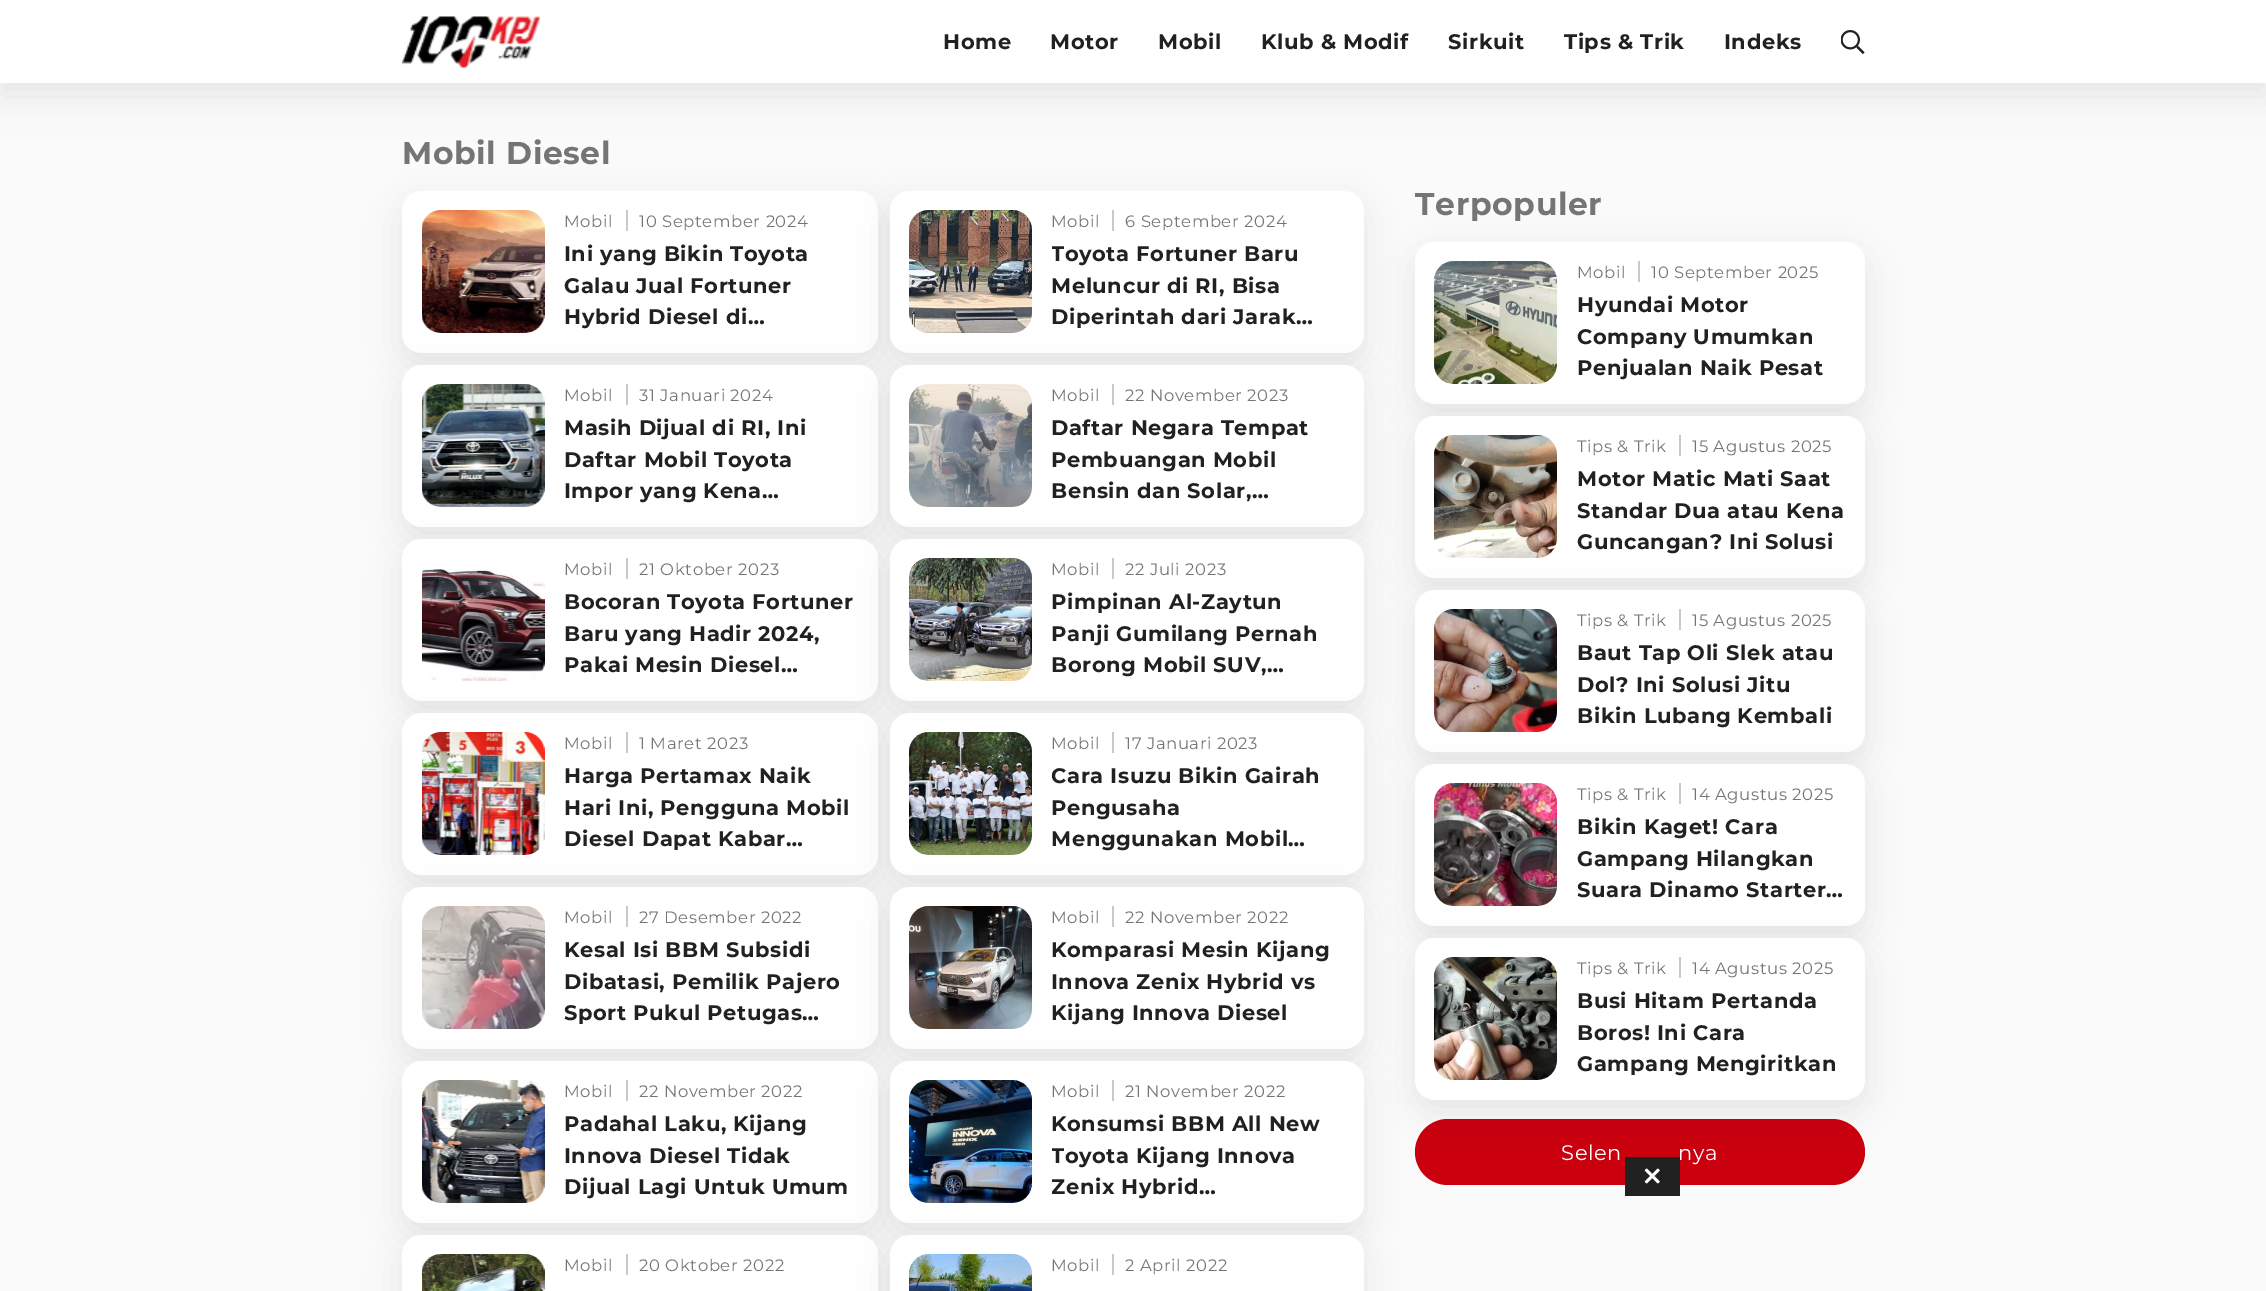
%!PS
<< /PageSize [2266 1291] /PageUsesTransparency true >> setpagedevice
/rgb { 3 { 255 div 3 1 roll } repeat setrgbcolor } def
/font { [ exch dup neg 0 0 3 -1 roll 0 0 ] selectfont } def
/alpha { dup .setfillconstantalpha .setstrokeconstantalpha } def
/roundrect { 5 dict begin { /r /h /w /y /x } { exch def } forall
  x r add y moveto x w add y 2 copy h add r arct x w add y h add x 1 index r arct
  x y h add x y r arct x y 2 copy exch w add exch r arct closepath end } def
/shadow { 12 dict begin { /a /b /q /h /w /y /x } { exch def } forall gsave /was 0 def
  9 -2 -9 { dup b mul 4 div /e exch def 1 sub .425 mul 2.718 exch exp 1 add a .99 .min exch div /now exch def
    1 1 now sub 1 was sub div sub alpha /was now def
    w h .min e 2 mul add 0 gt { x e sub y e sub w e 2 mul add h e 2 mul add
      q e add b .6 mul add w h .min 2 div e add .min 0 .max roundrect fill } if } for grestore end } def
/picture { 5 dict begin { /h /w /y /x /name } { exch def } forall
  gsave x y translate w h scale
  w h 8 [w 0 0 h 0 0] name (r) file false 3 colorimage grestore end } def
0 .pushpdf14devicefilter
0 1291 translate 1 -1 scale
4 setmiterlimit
250 250 250 rgb
0 0 2266 1291 rectfill
0 0 0 rgb
0 12 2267 83 0 16 0.08 shadow
255 255 255 rgb
0 0 2266 83 rectfill
(img/1.rgb) 402 16 138 52 picture
(img/2.rgb) 1841 30 24 24 picture
0 0 0 rgb
402 203 476 162 20 16 0.08 shadow
255 255 255 rgb
402 191 476 162 20 roundrect fill
0 0 0 rgb
890 203 474 162 20 16 0.08 shadow
255 255 255 rgb
890 191 474 162 20 roundrect fill
0 0 0 rgb
402 377 476 162 20 16 0.08 shadow
(img/3.rgb) 422 210 123 123 picture
201 201 201 rgb
626 210 2 21 rectfill
255 255 255 rgb
402 365 476 162 20 roundrect fill
0 0 0 rgb
890 377 474 162 20 16 0.08 shadow
(img/4.rgb) 909 210 123 123 picture
201 201 201 rgb
1112 210 2 21 rectfill
255 255 255 rgb
890 365 474 162 20 roundrect fill
0 0 0 rgb
402 551 476 162 20 16 0.08 shadow
(img/5.rgb) 422 384 123 123 picture
201 201 201 rgb
626 384 2 21 rectfill
255 255 255 rgb
402 539 476 162 20 roundrect fill
0 0 0 rgb
890 551 474 162 20 16 0.08 shadow
(img/6.rgb) 909 384 123 123 picture
201 201 201 rgb
1112 384 2 21 rectfill
255 255 255 rgb
890 539 474 162 20 roundrect fill
0 0 0 rgb
402 725 476 162 20 16 0.08 shadow
(img/7.rgb) 422 569 123 112 picture
201 201 201 rgb
626 558 2 21 rectfill
255 255 255 rgb
402 713 476 162 20 roundrect fill
0 0 0 rgb
890 725 474 162 20 16 0.08 shadow
(img/8.rgb) 909 558 123 123 picture
201 201 201 rgb
1112 558 2 21 rectfill
255 255 255 rgb
890 713 474 162 20 roundrect fill
0 0 0 rgb
402 899 476 162 20 16 0.08 shadow
(img/9.rgb) 422 732 123 123 picture
201 201 201 rgb
626 732 2 21 rectfill
255 255 255 rgb
402 887 476 162 20 roundrect fill
0 0 0 rgb
890 899 474 162 20 16 0.08 shadow
(img/10.rgb) 909 732 123 123 picture
201 201 201 rgb
1112 732 2 21 rectfill
255 255 255 rgb
890 887 474 162 20 roundrect fill
0 0 0 rgb
402 1073 476 162 20 16 0.08 shadow
(img/11.rgb) 422 906 123 123 picture
201 201 201 rgb
626 906 2 21 rectfill
255 255 255 rgb
402 1061 476 162 20 roundrect fill
0 0 0 rgb
890 1073 474 162 20 16 0.08 shadow
(img/12.rgb) 909 906 123 123 picture
201 201 201 rgb
1112 906 2 21 rectfill
255 255 255 rgb
890 1061 474 162 20 roundrect fill
0 0 0 rgb
402 1247 476 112 20 16 0.08 shadow
(img/13.rgb) 422 1080 123 123 picture
201 201 201 rgb
626 1080 2 21 rectfill
255 255 255 rgb
402 1235 476 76 20 roundrect fill
0 0 0 rgb
890 1247 474 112 20 16 0.08 shadow
(img/14.rgb) 909 1080 123 123 picture
201 201 201 rgb
1112 1080 2 21 rectfill
(img/15.rgb) 422 1254 123 37 picture
626 1254 2 21 rectfill
255 255 255 rgb
890 1235 474 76 20 roundrect fill
(img/16.rgb) 909 1254 123 37 picture
201 201 201 rgb
1112 1254 2 21 rectfill
0 0 0 rgb
1415 254 450 162 20 16 0.08 shadow
255 255 255 rgb
1415 242 450 162 20 roundrect fill
0 0 0 rgb
1415 428 450 162 20 16 0.08 shadow
(img/17.rgb) 1434 261 123 123 picture
201 201 201 rgb
1638 261 2 21 rectfill
255 255 255 rgb
1415 416 450 162 20 roundrect fill
0 0 0 rgb
1415 602 450 162 20 16 0.08 shadow
(img/18.rgb) 1434 435 123 123 picture
201 201 201 rgb
1679 435 2 21 rectfill
255 255 255 rgb
1415 590 450 162 20 roundrect fill
0 0 0 rgb
1415 776 450 162 20 16 0.08 shadow
(img/19.rgb) 1434 609 123 123 picture
201 201 201 rgb
1679 609 2 21 rectfill
255 255 255 rgb
1415 764 450 162 20 roundrect fill
202 0 14 rgb
1415 1119 450 66 33 roundrect fill
0 0 0 rgb
1415 950 450 162 20 16 0.08 shadow
(img/20.rgb) 1434 783 123 123 picture
201 201 201 rgb
1679 783 2 21 rectfill
255 255 255 rgb
1415 938 450 162 20 roundrect fill
(img/21.rgb) 1434 957 123 123 picture
201 201 201 rgb
1679 957 2 21 rectfill
33 33 33 rgb
1625 1157 55 39 rectfill
(img/22.rgb) 1644 1168 16 16 picture
/Montserrat-Bold 21 font
943 49 moveto 0.6 0 (Home) ashow
1050 49 moveto 0.6 0 (Motor) ashow
1158 49 moveto 0.6 0 (Mobil) ashow
1261 49 moveto 0.6 0 (Klub & Modif) ashow
1448 49 moveto 0.6 0 (Sirkuit) ashow
1564 49 moveto 0.6 0 (Tips & Trik) ashow
1724 49 moveto 0.6 0 (Indeks) ashow
/Montserrat-Bold 31.5 font
117 117 117 rgb
402 164 moveto 0.6 0 (Mobil Diesel) ashow
/Montserrat-Regular 16.5 font
564 227 moveto 0.6 0 (Mobil) ashow
639 227 moveto 0.6 0 (10 September 2024) ashow
/Montserrat-Bold 21 font
33 33 33 rgb
564 261 moveto 0.6 0 (Ini yang Bikin Toyota) ashow
564 293 moveto 0.6 0 (Galau Jual Fortuner) ashow
564 324 moveto 0.6 0 (Hybrid Diesel di…) ashow
/Montserrat-Regular 16.5 font
117 117 117 rgb
1051 227 moveto 0.6 0 (Mobil) ashow
1125 227 moveto 0.6 0 (6 September 2024) ashow
gsave
1052 239 292 94 rectclip
/Montserrat-Bold 21 font
33 33 33 rgb
1051 261 moveto 0.6 0 (Toyota Fortuner Baru) ashow
grestore
/Montserrat-Bold 21 font
33 33 33 rgb
1051 293 moveto 0.6 0 (Meluncur di RI, Bisa) ashow
1051 324 moveto 0.6 0 (Diperintah dari Jarak…) ashow
/Montserrat-Regular 16.5 font
117 117 117 rgb
564 401 moveto 0.6 0 (Mobil) ashow
639 401 moveto 0.6 0 (31 Januari 2024) ashow
/Montserrat-Bold 21 font
33 33 33 rgb
564 435 moveto 0.6 0 (Masih Dijual di RI, Ini) ashow
564 467 moveto 0.6 0 (Daftar Mobil Toyota) ashow
564 498 moveto 0.6 0 (Impor yang Kena…) ashow
/Montserrat-Regular 16.5 font
117 117 117 rgb
1051 401 moveto 0.6 0 (Mobil) ashow
1125 401 moveto 0.6 0 (22 November 2023) ashow
/Montserrat-Bold 21 font
33 33 33 rgb
1051 435 moveto 0.6 0 (Daftar Negara Tempat) ashow
1051 467 moveto 0.6 0 (Pembuangan Mobil) ashow
1051 498 moveto 0.6 0 (Bensin dan Solar,…) ashow
/Montserrat-Regular 16.5 font
117 117 117 rgb
564 575 moveto 0.6 0 (Mobil) ashow
639 575 moveto 0.6 0 (21 Oktober 2023) ashow
/Montserrat-Bold 21 font
33 33 33 rgb
564 609 moveto 0.6 0 (Bocoran Toyota Fortuner) ashow
564 641 moveto 0.6 0 (Baru yang Hadir 2024,) ashow
564 672 moveto 0.6 0 (Pakai Mesin Diesel…) ashow
/Montserrat-Regular 16.5 font
117 117 117 rgb
1051 575 moveto 0.6 0 (Mobil) ashow
1125 575 moveto 0.6 0 (22 Juli 2023) ashow
/Montserrat-Bold 21 font
33 33 33 rgb
1051 609 moveto 0.6 0 (Pimpinan Al-Zaytun) ashow
1051 641 moveto 0.6 0 (Panji Gumilang Pernah) ashow
1051 672 moveto 0.6 0 (Borong Mobil SUV,…) ashow
/Montserrat-Regular 16.5 font
117 117 117 rgb
564 749 moveto 0.6 0 (Mobil) ashow
639 749 moveto 0.6 0 (1 Maret 2023) ashow
/Montserrat-Bold 21 font
33 33 33 rgb
564 783 moveto 0.6 0 (Harga Pertamax Naik) ashow
564 815 moveto 0.6 0 (Hari Ini, Pengguna Mobil) ashow
564 846 moveto 0.6 0 (Diesel Dapat Kabar…) ashow
/Montserrat-Regular 16.5 font
117 117 117 rgb
1051 749 moveto 0.6 0 (Mobil) ashow
1125 749 moveto 0.6 0 (17 Januari 2023) ashow
gsave
1052 761 292 94 rectclip
/Montserrat-Bold 21 font
33 33 33 rgb
1051 783 moveto 0.6 0 (Cara Isuzu Bikin Gairah) ashow
grestore
/Montserrat-Bold 21 font
33 33 33 rgb
1051 815 moveto 0.6 0 (Pengusaha) ashow
1051 846 moveto 0.6 0 (Menggunakan Mobil…) ashow
/Montserrat-Regular 16.5 font
117 117 117 rgb
564 923 moveto 0.6 0 (Mobil) ashow
639 923 moveto 0.6 0 (27 Desember 2022) ashow
/Montserrat-Bold 21 font
33 33 33 rgb
564 957 moveto 0.6 0 (Kesal Isi BBM Subsidi) ashow
564 989 moveto 0.6 0 (Dibatasi, Pemilik Pajero) ashow
564 1020 moveto 0.6 0 (Sport Pukul Petugas…) ashow
/Montserrat-Regular 16.5 font
117 117 117 rgb
1051 923 moveto 0.6 0 (Mobil) ashow
1125 923 moveto 0.6 0 (22 November 2022) ashow
/Montserrat-Bold 21 font
33 33 33 rgb
1051 957 moveto 0.6 0 (Komparasi Mesin Kijang) ashow
1051 989 moveto 0.6 0 (Innova Zenix Hybrid vs) ashow
1051 1020 moveto 0.6 0 (Kijang Innova Diesel) ashow
/Montserrat-Regular 16.5 font
117 117 117 rgb
564 1097 moveto 0.6 0 (Mobil) ashow
639 1097 moveto 0.6 0 (22 November 2022) ashow
/Montserrat-Bold 21 font
33 33 33 rgb
564 1131 moveto 0.6 0 (Padahal Laku, Kijang) ashow
564 1163 moveto 0.6 0 (Innova Diesel Tidak) ashow
564 1194 moveto 0.6 0 (Dijual Lagi Untuk Umum) ashow
/Montserrat-Regular 16.5 font
117 117 117 rgb
1051 1097 moveto 0.6 0 (Mobil) ashow
1125 1097 moveto 0.6 0 (21 November 2022) ashow
/Montserrat-Bold 21 font
33 33 33 rgb
1051 1131 moveto 0.6 0 (Konsumsi BBM All New) ashow
gsave
1052 1109 292 94 rectclip
1051 1163 moveto 0.6 0 (Toyota Kijang Innova) ashow
1051 1194 moveto 0.6 0 (Zenix Hybrid…) ashow
grestore
/Montserrat-Regular 16.5 font
117 117 117 rgb
564 1271 moveto 0.6 0 (Mobil) ashow
639 1271 moveto 0.6 0 (20 Oktober 2022) ashow
1051 1271 moveto 0.6 0 (Mobil) ashow
1125 1271 moveto 0.6 0 (2 April 2022) ashow
/Montserrat-Bold 31.5 font
1415 215 moveto 0.6 0 (Terpopuler) ashow
/Montserrat-Regular 16.5 font
1577 278 moveto 0.6 0 (Mobil) ashow
1651 278 moveto 0.6 0 (10 September 2025) ashow
/Montserrat-Bold 21 font
33 33 33 rgb
1577 312 moveto 0.6 0 (Hyundai Motor) ashow
1577 344 moveto 0.6 0 (Company Umumkan) ashow
1577 375 moveto 0.6 0 (Penjualan Naik Pesat) ashow
/Montserrat-Regular 16.5 font
117 117 117 rgb
1577 452 moveto 0.6 0 (Tips & Trik) ashow
1692 452 moveto 0.6 0 (15 Agustus 2025) ashow
/Montserrat-Bold 21 font
33 33 33 rgb
1577 486 moveto 0.6 0 (Motor Matic Mati Saat) ashow
1577 518 moveto 0.6 0 (Standar Dua atau Kena) ashow
1577 549 moveto 0.6 0 (Guncangan? Ini Solusi) ashow
/Montserrat-Regular 16.5 font
117 117 117 rgb
1577 626 moveto 0.6 0 (Tips & Trik) ashow
1692 626 moveto 0.6 0 (15 Agustus 2025) ashow
/Montserrat-Bold 21 font
33 33 33 rgb
1577 660 moveto 0.6 0 (Baut Tap Oli Slek atau) ashow
1577 692 moveto 0.6 0 (Dol? Ini Solusi Jitu) ashow
1577 723 moveto 0.6 0 (Bikin Lubang Kembali) ashow
/Montserrat-Regular 16.5 font
117 117 117 rgb
1577 800 moveto 0.6 0 (Tips & Trik) ashow
1692 800 moveto 0.6 0 (14 Agustus 2025) ashow
/Montserrat-Bold 21 font
33 33 33 rgb
1577 834 moveto 0.6 0 (Bikin Kaget! Cara) ashow
1577 866 moveto 0.6 0 (Gampang Hilangkan) ashow
1577 897 moveto 0.6 0 (Suara Dinamo Starter…) ashow
/Montserrat-Regular 16.5 font
117 117 117 rgb
1577 974 moveto 0.6 0 (Tips & Trik) ashow
1692 974 moveto 0.6 0 (14 Agustus 2025) ashow
/Montserrat-Bold 21 font
33 33 33 rgb
1577 1008 moveto 0.6 0 (Busi Hitam Pertanda) ashow
1577 1040 moveto 0.6 0 (Boros! Ini Cara) ashow
1577 1071 moveto 0.6 0 (Gampang Mengiritkan) ashow
/Montserrat-Regular 21 font
255 255 255 rgb
1561 1160 moveto 0.6 0 (Selen) ashow
1678 1160 moveto 0.6 0 (nya) ashow
.poppdf14devicefilter showpage
